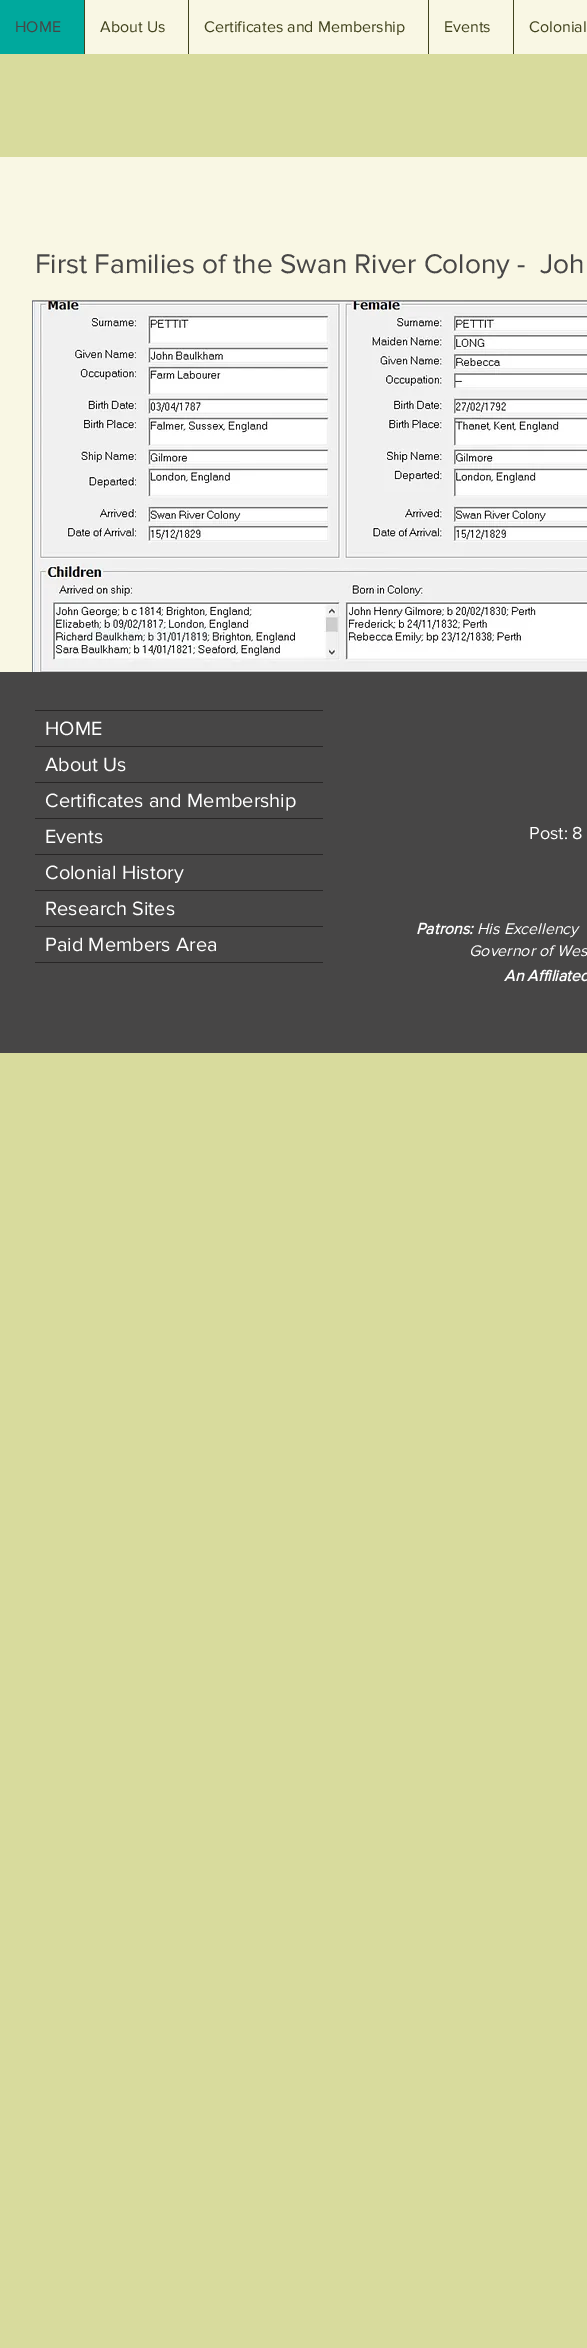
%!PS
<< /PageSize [587 2348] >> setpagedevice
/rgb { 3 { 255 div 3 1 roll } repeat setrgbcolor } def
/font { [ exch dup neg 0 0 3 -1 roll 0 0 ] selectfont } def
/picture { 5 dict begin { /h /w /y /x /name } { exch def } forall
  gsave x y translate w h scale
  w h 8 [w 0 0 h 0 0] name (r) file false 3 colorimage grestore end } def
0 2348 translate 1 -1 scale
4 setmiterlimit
216 219 157 rgb
0 0 587 2348 rectfill
[
  [85 0 502 54 249 247 228]
  [0 0 84 54 0 169 157]
  [84 0 1 54 65 67 29]
  [188 0 1 54 65 67 29]
  [428 0 1 54 65 67 29]
  [513 0 1 54 65 67 29]
  [0 157 587 515 249 247 228]
] { aload pop rgb rectfill } forall
(img/1.rgb) 32 300 555 372 picture
[
  [0 672 587 381 71 70 70]
  [35 710 288 1 40 38 38]
  [35 962 288 1 40 38 38]
  [35 746 288 1 40 38 38]
  [35 782 288 1 40 38 38]
  [35 818 288 1 40 38 38]
  [35 854 288 1 40 38 38]
  [35 890 288 1 40 38 38]
  [35 926 288 1 40 38 38]
] { aload pop rgb rectfill } forall
/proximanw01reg-Regular 16 font
71 70 70 rgb
15 32 moveto (HOME) show
65 67 29 rgb
[
  [(About Us) 100 32]
  [(Certificates and Membership) 204 32]
  [(Events) 444 32]
  [(Colonial) 529 32]
] { aload pop moveto show } forall
/proximanw01reg-Regular 28 font
71 70 70 rgb
35 273 moveto (First Families of the Swan River Colony -  Joh) show
/proximanw01reg-Regular 20 font
255 255 255 rgb
[
  [(HOME) 45 735]
  [(About Us) 45 771]
  [(Certificates and Membership) 45 807]
  [(Events) 45 843]
  [(Colonial History) 45 879]
  [(Research Sites) 45 915]
  [(Paid Members Area) 45 951]
] { aload pop moveto show } forall
/proximanw01reg-Regular 18 font
529 839 moveto (Post: 8) show
/proximanw01reg-BoldItalic 16 font
416 934 moveto (Patrons:) show
/proximanw01reg-Italic 16 font
477 934 moveto (His Excellency) show
469 956 moveto (Governor of Wes) show
/proximanw01reg-BoldItalic 16 font
504 981 moveto (An Affiliated) show
showpage
